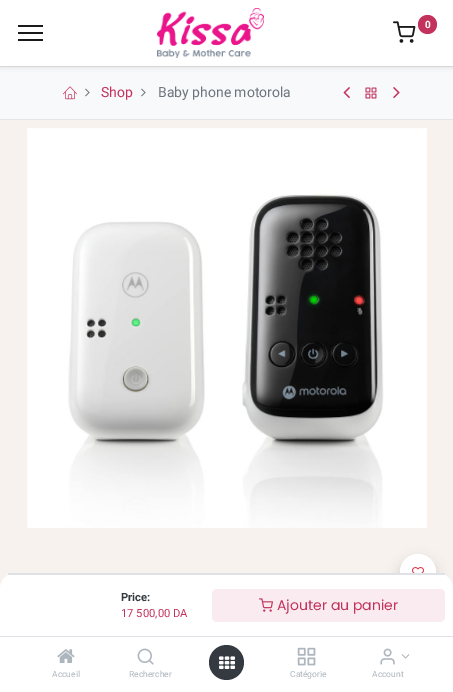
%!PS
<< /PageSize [453 692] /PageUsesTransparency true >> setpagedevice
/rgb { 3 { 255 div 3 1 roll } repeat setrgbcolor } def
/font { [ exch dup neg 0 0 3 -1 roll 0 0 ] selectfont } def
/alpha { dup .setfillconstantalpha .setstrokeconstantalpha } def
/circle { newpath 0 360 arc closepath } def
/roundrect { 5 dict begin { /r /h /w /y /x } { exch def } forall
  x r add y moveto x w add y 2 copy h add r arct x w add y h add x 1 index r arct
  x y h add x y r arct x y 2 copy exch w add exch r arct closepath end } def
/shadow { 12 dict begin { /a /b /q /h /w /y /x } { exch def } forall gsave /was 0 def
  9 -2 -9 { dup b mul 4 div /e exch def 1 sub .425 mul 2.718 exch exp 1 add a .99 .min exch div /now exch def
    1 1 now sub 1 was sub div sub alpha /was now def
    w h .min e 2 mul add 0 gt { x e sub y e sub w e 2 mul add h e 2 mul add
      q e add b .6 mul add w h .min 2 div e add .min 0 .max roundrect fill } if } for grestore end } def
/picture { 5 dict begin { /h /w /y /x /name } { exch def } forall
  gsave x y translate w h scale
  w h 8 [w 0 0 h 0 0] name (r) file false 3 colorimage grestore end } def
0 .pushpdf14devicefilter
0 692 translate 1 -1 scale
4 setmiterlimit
247 242 238 rgb
0 0 453 692 rectfill
248 249 250 rgb
0 67 453 52 rectfill
229 229 229 rgb
0 66 453 1 rectfill
0 0 0 rgb
0 2 453 66 0 2 0.08 shadow
[
  [0 0 453 66 255 255 255]
  [18 25 25 2 26 26 26]
  [18 32 25 2 26 26 26]
  [18 39 25 2 26 26 26]
] { aload pop rgb rectfill } forall
(img/1.rgb) 157 8 107 50 picture
(img/2.rgb) 393 21 23 22 picture
195 50 92 rgb
427.5 24.5 9.5 circle fill
229 229 229 rgb
0 119 453 1 rectfill
(img/3.rgb) 63 86 14 14 picture
(img/4.rgb) 85 88 5 9 picture
(img/4.rgb) 141 88 5 9 picture
(img/5.rgb) 343 87 7 12 picture
(img/6.rgb) 365 87 12 12 picture
(img/7.rgb) 393 87 7 12 picture
(img/8.rgb) 27 128 400 400 picture
0 0 0 rgb
400 561 36 36 18 7 0.15 shadow
255 255 255 rgb
418 572 18 circle fill
(img/9.rgb) 412 567 12 6 picture
16 573 moveto 437 573 lineto 446 573 453 580 453 589 curveto 453 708 lineto 0 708 lineto 0 589 lineto 0 580 7 573 16 573 curveto closepath fill
222 226 230 rgb
8 573 437 2 rectfill
0 636 453 1 rectfill
249 235 239 rgb
212 589 233 33 5 roundrect fill
(img/10.rgb) 259 598 14 14 picture
(img/11.rgb) 57 649 18 14 picture
(img/12.rgb) 137 648 17 17 picture
52 58 64 rgb
226.5 662.5 17.5 circle fill
(img/13.rgb) 219 656 16 13 picture
(img/14.rgb) 297 647 19 19 picture
(img/15.rgb) 380 648 15 17 picture
(img/16.rgb) 401 654 9 5 picture
/Roboto-Bold 10 font
255 255 255 rgb
425 28 moveto (0) show
/Roboto-Regular 14 font
195 50 92 rgb
101 97 moveto (Shop) show
108 117 125 rgb
158 97 moveto (Baby phone motorola) show
/Roboto-Bold 11.25 font
52 58 64 rgb
121 601 moveto (Price:) show
/Roboto-Regular 11.25 font
195 50 92 rgb
121 617 moveto (17 500,00 DA) show
/Poppins-Regular 14 font
277 610 moveto (Ajouter au panier) show
/Roboto-Regular 8.5 font
173 181 189 rgb
[
  [(Accueil) 52 677]
  [(Rechercher) 129 677]
  [(Catégorie) 290 677]
  [(Account) 372 677]
] { aload pop moveto show } forall
.poppdf14devicefilter showpage
